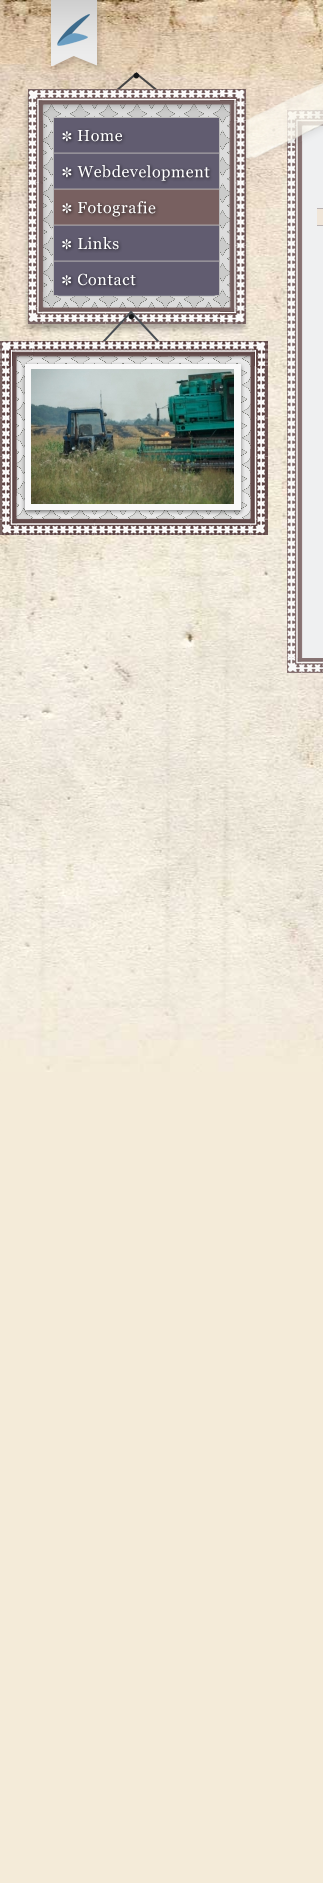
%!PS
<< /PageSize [323 1883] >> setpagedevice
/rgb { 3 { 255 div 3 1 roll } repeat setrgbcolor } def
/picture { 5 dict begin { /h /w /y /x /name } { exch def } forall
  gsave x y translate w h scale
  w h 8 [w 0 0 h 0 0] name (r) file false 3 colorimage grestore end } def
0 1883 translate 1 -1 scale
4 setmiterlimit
244 235 217 rgb
0 0 323 1883 rectfill
(img/1.rgb) 0 0 323 1072 picture
(img/2.rgb) 0 72 323 463 picture
(img/3.rgb) 51 0 51 72 picture
(img/4.rgb) 53 117 167 180 picture
(img/5.rgb) 54 189 165 36 picture
(img/6.rgb) 31 369 203 135 picture
(img/7.rgb) 287 146 36 512 picture
[
  [317 208 6 1 185 178 178]
  [317 209 6 17 240 230 217]
  [317 225 6 1 185 178 178]
] { aload pop rgb rectfill } forall
(img/8.rgb) 287 658 36 15 picture
showpage
